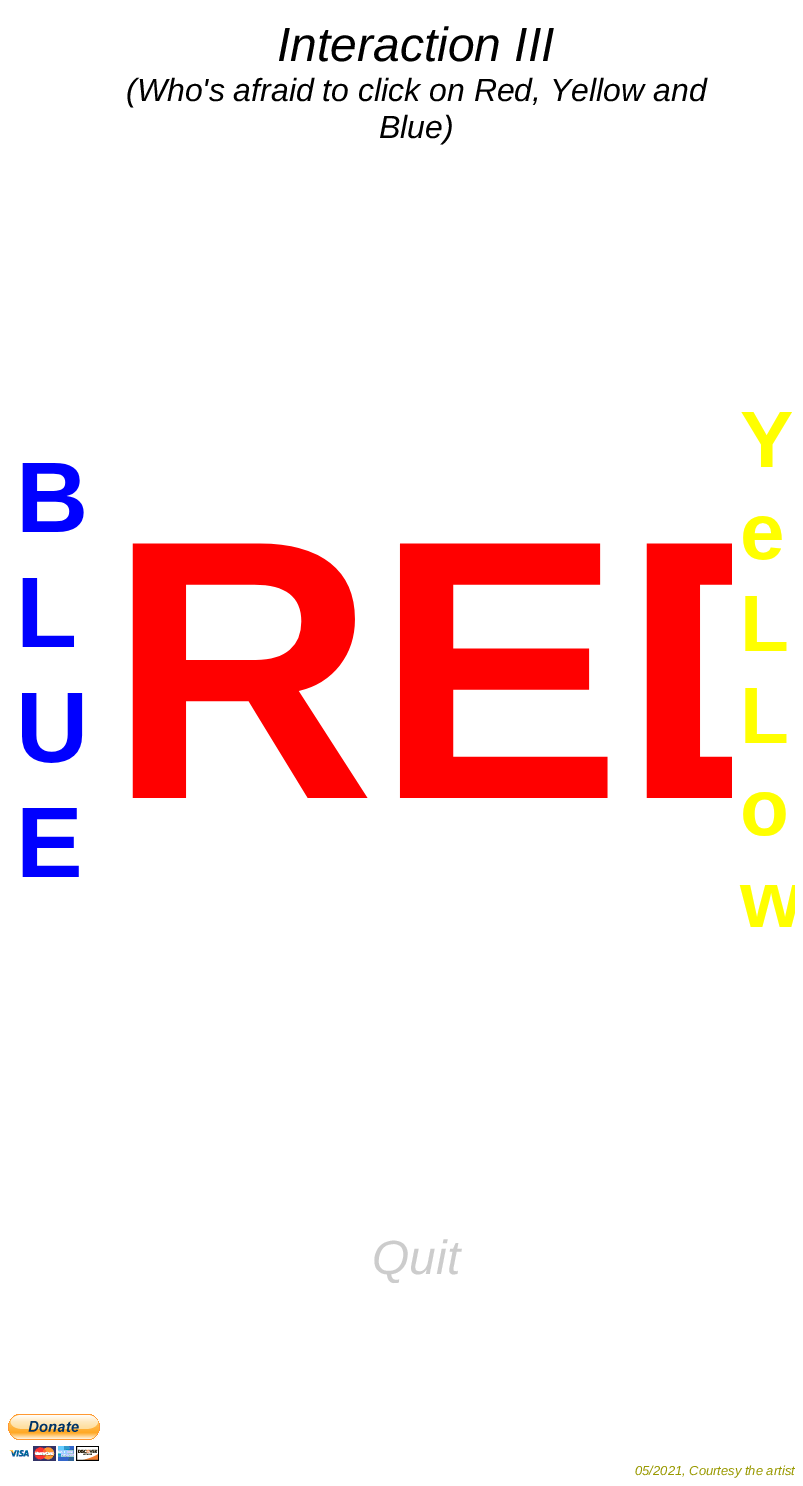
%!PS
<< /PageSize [803 1486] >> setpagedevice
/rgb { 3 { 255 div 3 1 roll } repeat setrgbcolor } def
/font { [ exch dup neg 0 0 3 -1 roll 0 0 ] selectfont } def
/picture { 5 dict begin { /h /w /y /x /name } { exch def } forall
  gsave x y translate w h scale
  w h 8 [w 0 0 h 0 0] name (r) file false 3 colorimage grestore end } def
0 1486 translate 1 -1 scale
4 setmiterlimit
255 255 255 rgb
0 0 803 1486 rectfill
(img/1.rgb) 22 463 62 414 picture
(img/2.rgb) 132 543 600 255 picture
(img/3.rgb) 739 412 56 515 picture
(img/4.rgb) 8 1414 92 47 picture
/LiberationSans-Italic 48 font
0 0 0 rgb
277 61 moveto (Interaction III) show
/LiberationSans-Italic 32 font
126 101 moveto (\(Who's afraid to click on Red, Yellow and) show
379 138 moveto (Blue\)) show
/LiberationSans-Italic 48 font
204 204 204 rgb
372 1274 moveto (Quit) show
/LiberationSans-Italic 13 font
153 153 0 rgb
635 1475 moveto (05/2021, Courtesy the artist) show
showpage
